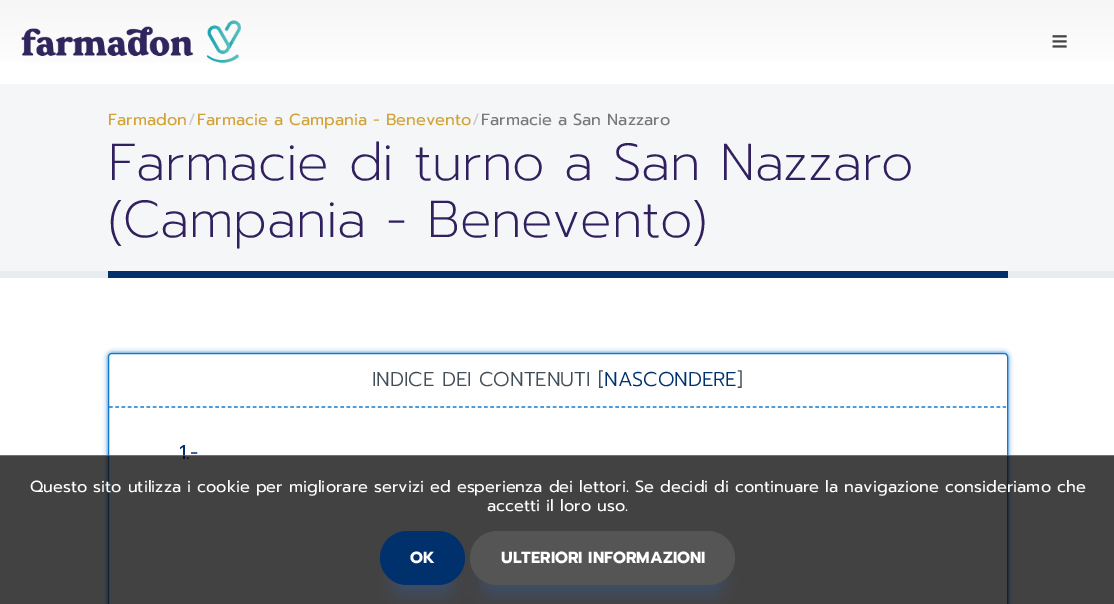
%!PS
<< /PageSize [1114 604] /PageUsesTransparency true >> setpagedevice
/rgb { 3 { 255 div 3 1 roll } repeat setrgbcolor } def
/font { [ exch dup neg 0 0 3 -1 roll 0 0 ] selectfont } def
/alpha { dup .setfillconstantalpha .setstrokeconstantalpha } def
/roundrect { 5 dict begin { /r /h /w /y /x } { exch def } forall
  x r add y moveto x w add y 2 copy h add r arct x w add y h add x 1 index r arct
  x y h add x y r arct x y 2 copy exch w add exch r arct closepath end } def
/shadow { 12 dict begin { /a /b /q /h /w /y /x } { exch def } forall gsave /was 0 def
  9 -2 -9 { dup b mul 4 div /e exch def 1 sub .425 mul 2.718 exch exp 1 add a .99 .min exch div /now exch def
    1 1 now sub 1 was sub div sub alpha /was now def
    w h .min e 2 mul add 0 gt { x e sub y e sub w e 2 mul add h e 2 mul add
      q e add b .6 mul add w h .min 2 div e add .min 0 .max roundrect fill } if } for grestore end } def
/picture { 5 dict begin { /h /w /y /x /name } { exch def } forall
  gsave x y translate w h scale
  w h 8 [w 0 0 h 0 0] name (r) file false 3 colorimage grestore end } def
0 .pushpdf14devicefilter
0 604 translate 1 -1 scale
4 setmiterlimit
255 255 255 rgb
0 0 1114 604 rectfill
gsave 0 0 moveto 1114 0 lineto 1114 61 lineto 0 61 lineto closepath clip newpath
<< /ShadingType 2 /ColorSpace /DeviceRGB /Coords [558 0 558 84] /Extend [true true] /Function << /FunctionType 2 /Domain [0 1] /C0 [0.965 0.965 0.965] /C1 [1 1 1] /N 1 >> >> shfill grestore
(img/1.rgb) 21 20 220 43 picture
(img/2.rgb) 1052 35 15 13 picture
[
  [0 84 1114 187 244 246 248]
  [0 271 1114 7 232 236 241]
  [108 271 900 7 0 49 109]
] { aload pop rgb rectfill } forall
gsave
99 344 moveto 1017 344 lineto 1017 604 lineto 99 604 lineto closepath 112 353 moveto 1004 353 lineto 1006 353 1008 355 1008 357 curveto 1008 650 lineto 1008 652 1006 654 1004 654 curveto 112 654 lineto 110 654 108 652 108 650 curveto 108 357 lineto 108 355 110 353 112 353 curveto closepath eoclip newpath
17 119 204 rgb
108 353 900 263 4 2.5 1 shadow
grestore
17 119 204 rgb
108.5 353.5 899 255 3.5 roundrect stroke
1.2 setlinewidth
[3.75 2.5] 0 setdash
109 407 moveto 1006 407 lineto stroke
/Prompt-Regular 16.25 font
210 162 53 rgb
108 125 moveto (Farmadon) show
204 204 204 rgb
188 125 moveto (/) show
210 162 53 rgb
197 125 moveto (Farmacie a Campania - Benevento) show
204 204 204 rgb
472 125 moveto (/) show
119 119 119 rgb
481 125 moveto (Farmacie a San Nazzaro) show
/Prompt-ExtraLight 52 font
49 32 94 rgb
108 180 moveto -0.25 0 (Farmacie di turno a San Nazzaro) ashow
108 237 moveto -0.25 0 (\(Campania - Benevento\)) ashow
/Prompt-Light 20 font
65 77 87 rgb
372 386 moveto (INDICE DEI CONTENUTI [) show
0 49 109 rgb
604 386 moveto (NASCONDERE) show
65 77 87 rgb
737 386 moveto (]) show
/Prompt-Regular 20 font
0 49 109 rgb
179 459 moveto (1.-) show
0.76 alpha
8 7 7 rgb
0 455 1114 149 rectfill
0.25 alpha
255 255 255 rgb
0 455 1114 1 rectfill
/Prompt-Regular 16.25 font
1 alpha
30 492 moveto (Questo sito utilizza i cookie per migliorare servizi ed esperienza dei lettori. Se decidi di continuare la navigazione consideriamo che) show
487 511 moveto (accetti il loro uso.) show
34 117 241 rgb
395 569 55 24 12 10 0.25 shadow
0 49 109 rgb
380 531 85 54 27 roundrect fill
/Prompt-Bold 16.25 font
255 255 255 rgb
410 563 moveto (OK) show
34 117 241 rgb
485 569 235 24 12 10 0.25 shadow
85 85 85 rgb
470 531 265 54 27 roundrect fill
255 255 255 rgb
501 563 moveto (ULTERIORI INFORMAZIONI) show
.poppdf14devicefilter showpage
